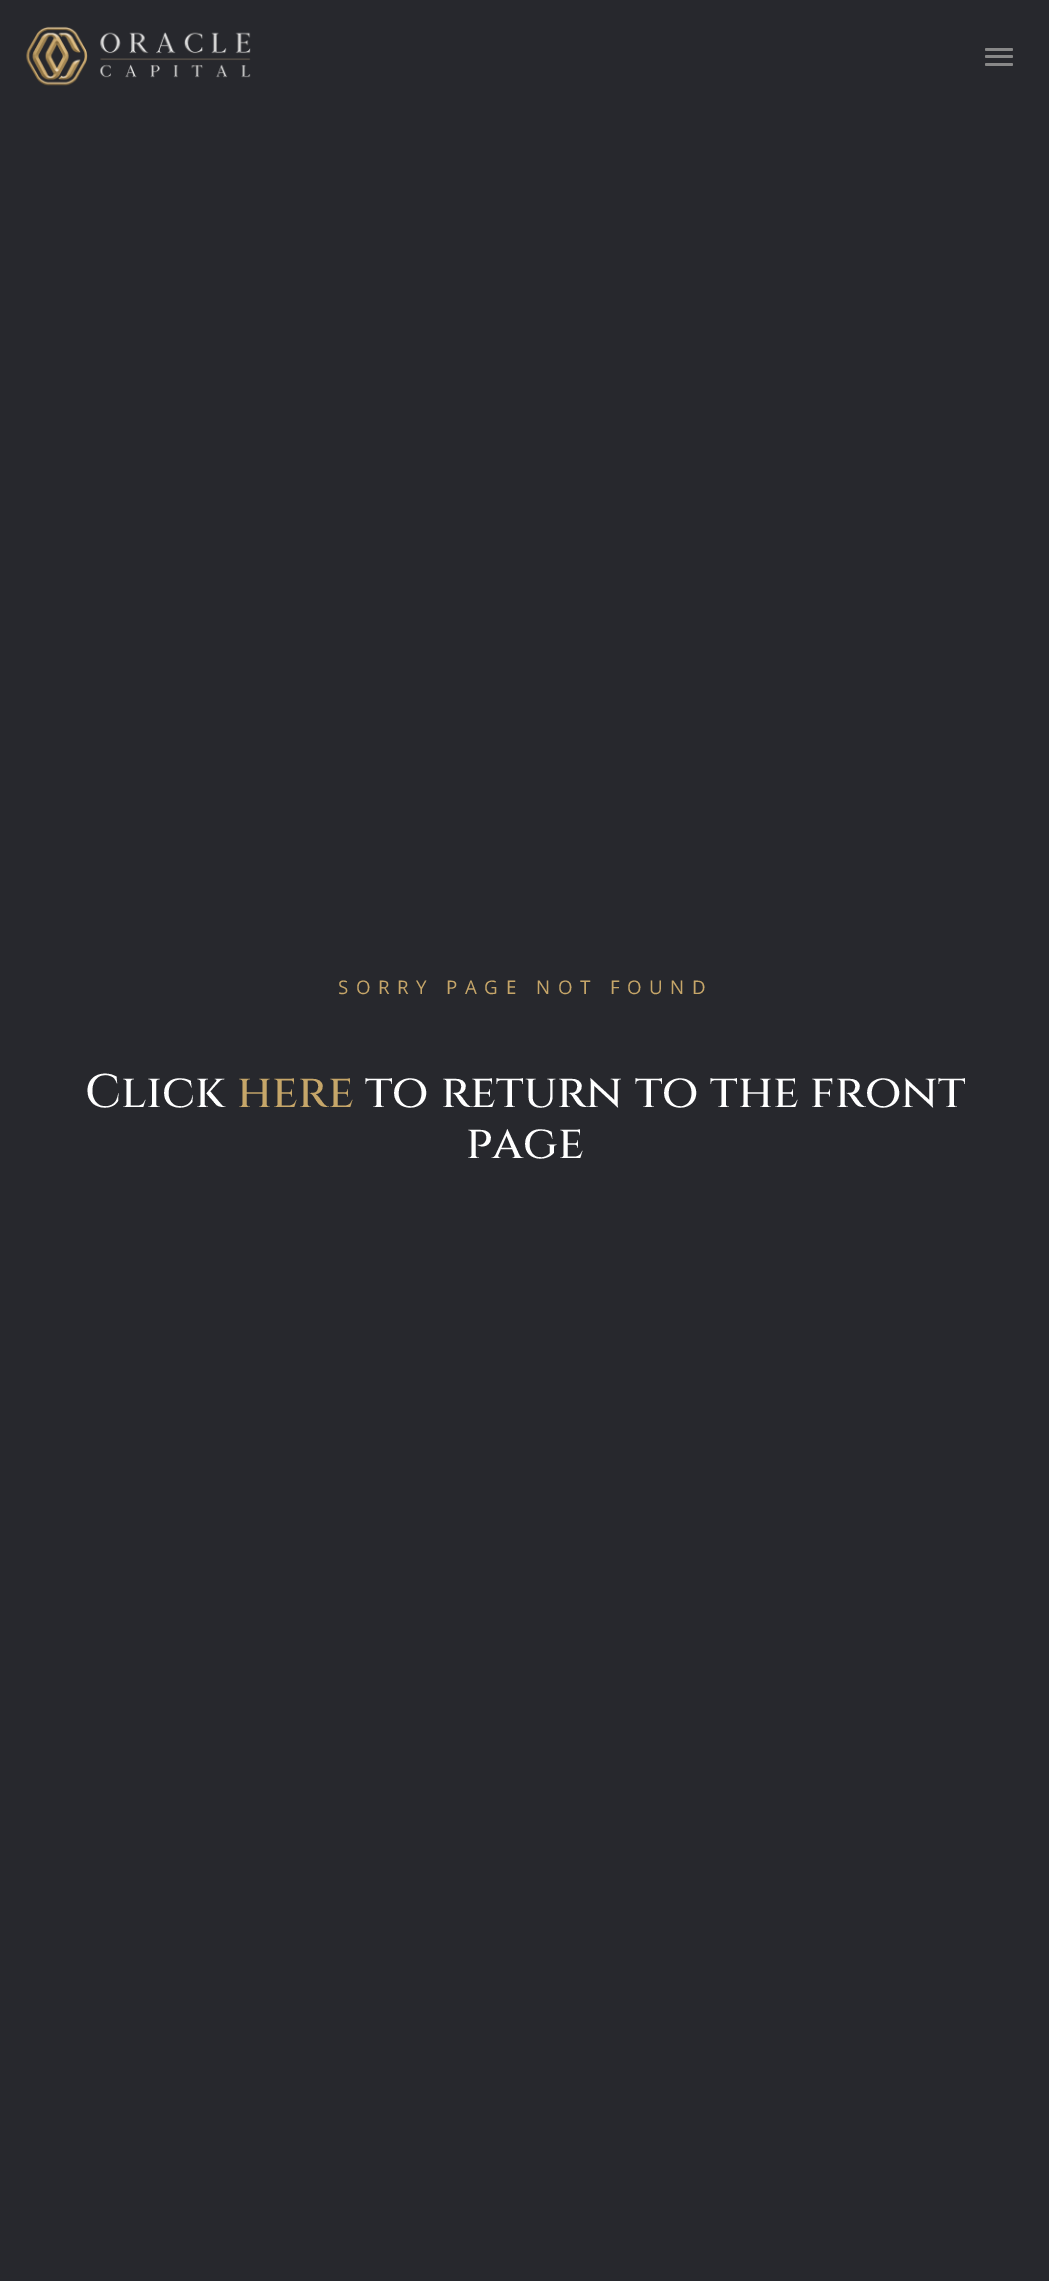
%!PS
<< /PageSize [1049 2281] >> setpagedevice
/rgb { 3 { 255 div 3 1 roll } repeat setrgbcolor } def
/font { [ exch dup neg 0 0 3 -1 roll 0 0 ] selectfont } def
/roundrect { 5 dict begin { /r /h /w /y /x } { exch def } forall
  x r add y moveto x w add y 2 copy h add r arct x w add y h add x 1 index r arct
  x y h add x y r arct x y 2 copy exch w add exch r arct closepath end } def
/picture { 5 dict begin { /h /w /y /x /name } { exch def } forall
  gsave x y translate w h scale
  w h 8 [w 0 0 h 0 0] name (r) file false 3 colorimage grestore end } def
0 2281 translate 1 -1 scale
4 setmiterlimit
39 40 45 rgb
0 0 1049 2281 rectfill
(img/1.rgb) 26 26 225 60 picture
136 136 136 rgb
985 48 28 3 1.5 roundrect fill
985 55 28 3 1.5 roundrect fill
985 63 28 3 1.5 roundrect fill
/OpenSans-Regular 18.75 font
198 166 105 rgb
338 994 moveto 7.5 0 (SORRY PAGE NOT FOUND) ashow
/Cinzel-Medium 46.9 font
255 255 255 rgb
85 1107 moveto (Click) show
198 166 105 rgb
237 1107 moveto (here) show
255 255 255 rgb
365 1107 moveto (to return to the front) show
466 1158 moveto (page) show
showpage
